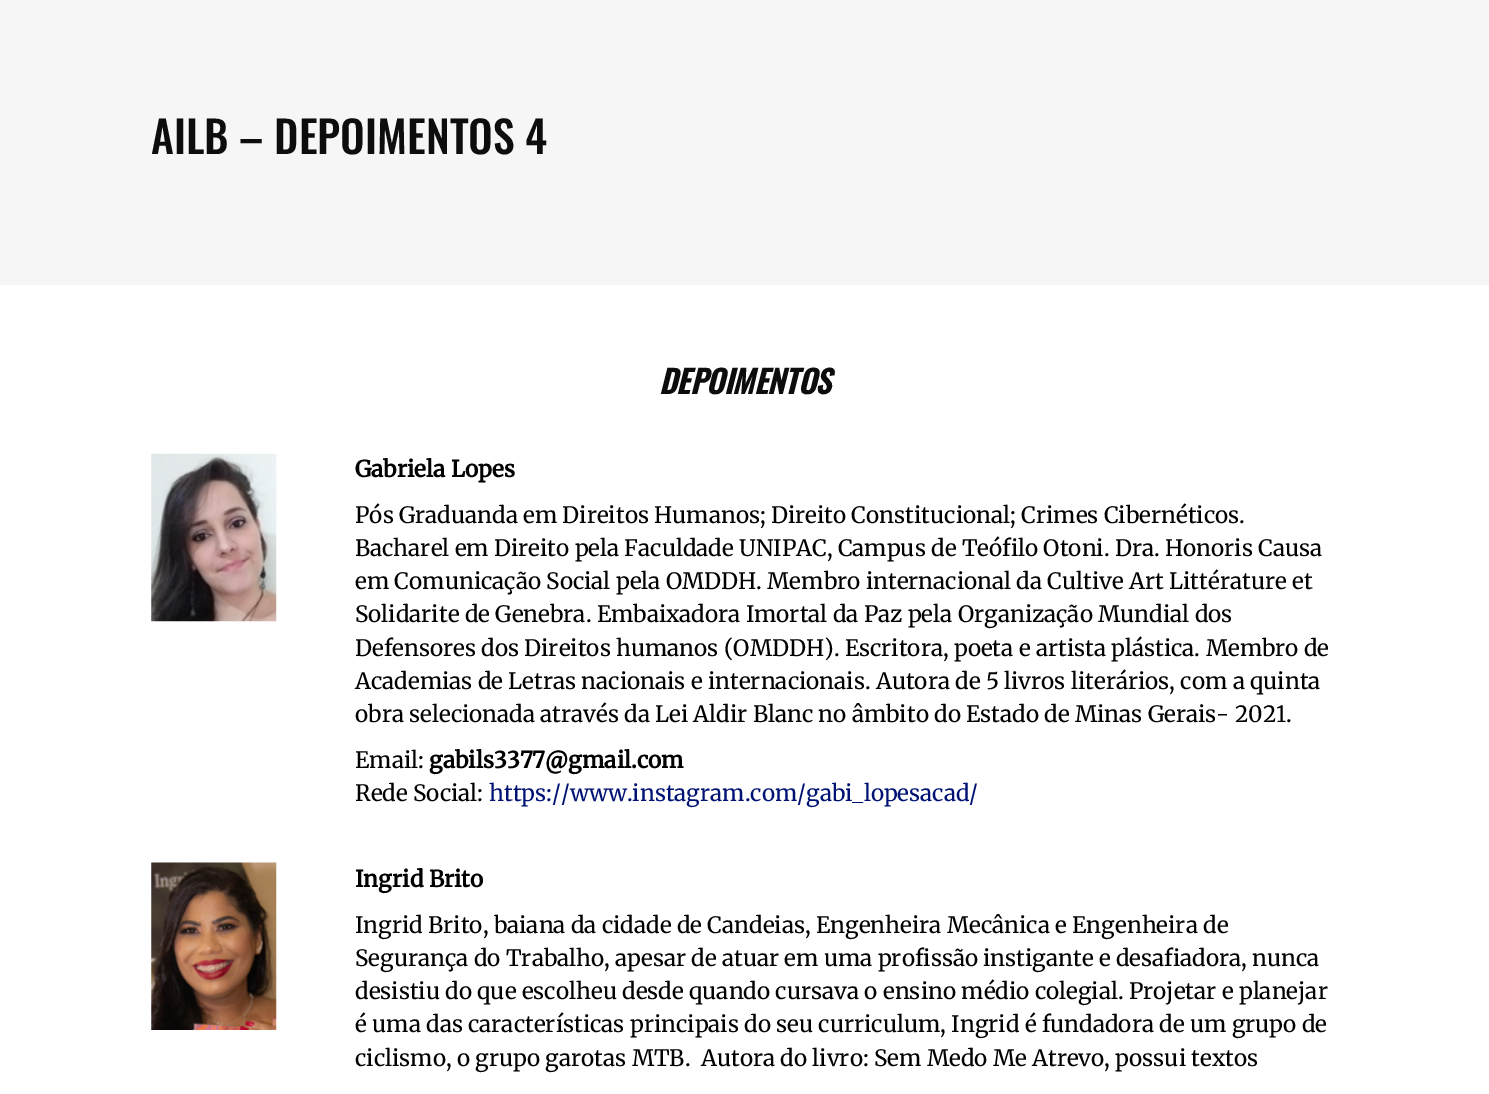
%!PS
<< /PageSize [1489 1094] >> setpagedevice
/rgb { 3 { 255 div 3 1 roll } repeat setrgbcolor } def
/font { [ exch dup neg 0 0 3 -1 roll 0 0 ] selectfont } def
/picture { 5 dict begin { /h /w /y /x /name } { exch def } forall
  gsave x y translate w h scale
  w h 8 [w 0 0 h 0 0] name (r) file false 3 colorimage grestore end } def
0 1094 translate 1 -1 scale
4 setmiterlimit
255 255 255 rgb
0 0 1489 1094 rectfill
246 246 246 rgb
0 0 1489 285 rectfill
(img/1.rgb) 151 453 126 169 picture
(img/2.rgb) 151 862 126 168 picture
/Oswald-Medium 43.75 font
13 13 13 rgb
151 154 moveto (AILB – DEPOIMENTOS 4) show
/Oswald-BoldItalic 31.25 font
659 394 moveto (DEPOIMENTOS) show
/Merriweather-Bold 22.5 font
0 0 0 rgb
355 477 moveto (Gabriela Lopes) show
/Merriweather-Regular 22.5 font
[
  [(Pós Graduanda em Direitos Humanos; Direito Constitucional; Crimes Cibernéticos.) 355 523]
  [(Bacharel em Direito pela Faculdade UNIPAC, Campus de Teófilo Otoni. Dra. Honoris Causa) 355 556]
  [(em Comunicação Social pela OMDDH. Membro internacional da Cultive Art Littérature et) 355 589]
  [(Solidarite de Genebra. Embaixadora Imortal da Paz pela Organização Mundial dos) 355 622]
  [(Defensores dos Direitos humanos \(OMDDH\). Escritora, poeta e artista plástica. Membro de) 355 656]
  [(Academias de Letras nacionais e internacionais. Autora de 5 livros literários, com a quinta) 355 689]
  [(obra selecionada através da Lei Aldir Blanc no âmbito do Estado de Minas Gerais- 2021.) 355 722]
  [(Email:) 355 768]
] { aload pop moveto show } forall
/Merriweather-Bold 22.5 font
429 768 moveto (gabils3377@gmail.com) show
/Merriweather-Regular 22.5 font
355 801 moveto (Rede Social:) show
0 19 117 rgb
489 801 moveto (https://www.instagram.com/gabi_lopesacad/) show
/Merriweather-Bold 22.5 font
0 0 0 rgb
355 887 moveto (Ingrid Brito) show
/Merriweather-Regular 22.5 font
[
  [(Ingrid Brito, baiana da cidade de Candeias, Engenheira Mecânica e Engenheira de) 355 933]
  [(Segurança do Trabalho, apesar de atuar em uma profissão instigante e desafiadora, nunca) 355 966]
  [(desistiu do que escolheu desde quando cursava o ensino médio colegial. Projetar e planejar) 355 999]
  [(é uma das características principais do seu curriculum, Ingrid é fundadora de um grupo de) 355 1032]
  [(ciclismo, o grupo garotas MTB.  Autora do livro: Sem Medo Me Atrevo, possui textos) 355 1066]
] { aload pop moveto show } forall
showpage
